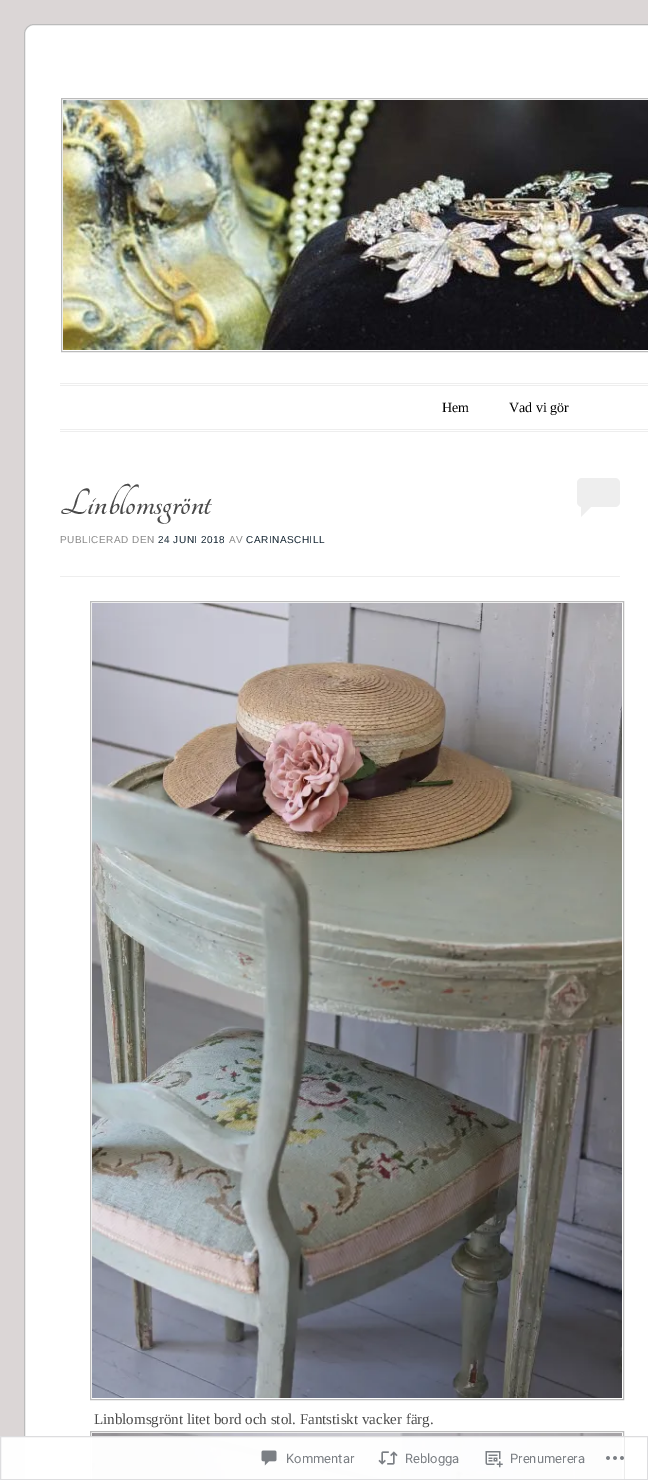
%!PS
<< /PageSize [648 1480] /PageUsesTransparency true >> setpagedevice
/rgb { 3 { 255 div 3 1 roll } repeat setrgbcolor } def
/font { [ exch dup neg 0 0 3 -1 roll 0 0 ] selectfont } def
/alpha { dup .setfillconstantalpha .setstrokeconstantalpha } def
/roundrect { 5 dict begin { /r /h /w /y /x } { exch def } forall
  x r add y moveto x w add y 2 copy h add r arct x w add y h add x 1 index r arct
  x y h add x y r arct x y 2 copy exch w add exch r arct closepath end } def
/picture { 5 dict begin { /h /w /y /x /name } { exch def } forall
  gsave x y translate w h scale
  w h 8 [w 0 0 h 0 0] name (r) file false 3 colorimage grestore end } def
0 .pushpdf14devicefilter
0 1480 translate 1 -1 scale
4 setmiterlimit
219 214 214 rgb
0 0 648 1480 rectfill
255 255 255 rgb
24.5 24.5 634 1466 9.5 roundrect gsave fill grestore
187 187 187 rgb
stroke
61.5 98.5 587 253 rectstroke
(img/1.rgb) 63 100 585 250 picture
[
  [60 383 588 1 238 238 238]
  [60 385 588 1 238 238 238]
  [60 429 588 1 238 238 238]
  [60 431 588 1 238 238 238]
] { aload pop rgb rectfill } forall
577 478 43 29 5 roundrect fill
581 517 moveto 581 507 lineto 591 507 lineto closepath fill
60 576 560 1 rectfill
187 187 187 rgb
90.5 601.5 533 798 rectstroke
(img/2.rgb) 92 603 530 795 picture
90.5 1431.5 533 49 rectstroke
(img/3.rgb) 92 1433 530 47 picture
0.98 alpha
255 255 255 rgb
0 1436 624 44 rectfill
220 220 222 rgb
0.5 1436.5 647 43 rectstroke
1 alpha
(img/4.rgb) 261 1450 16 16 picture
(img/5.rgb) 378 1451 20 14 picture
(img/6.rgb) 485 1451 18 17 picture
(img/7.rgb) 606 1456 18 4 picture
/LiberationSerif-Regular 14 font
0 0 0 rgb
442 412 moveto (Hem) show
509 412 moveto (Vad vi gör) show
/Tangerine-Bold 40 font
74 74 74 rgb
60 514 moveto (Linblomsgrönt) show
/LiberationSans-Regular 10 font
138 138 138 rgb
60 543 moveto 0.5 0 (PUBLICERAD DEN) ashow
20 37 50 rgb
158 543 moveto 0.5 0 (24 JUNI 2018) ashow
138 138 138 rgb
229 543 moveto 0.5 0 (AV) ashow
20 37 50 rgb
246 543 moveto 0.5 0 (CARINASCHILL) ashow
/LiberationSerif-Regular 15 font
74 74 74 rgb
94 1424 moveto (Linblomsgrönt litet bord och stol. Fantstiskt vacker färg.) show
/Roboto-Regular 13 font
123 127 132 rgb
[
  [(Kommentar) 286 1463]
  [(Reblogga) 405 1463]
  [(Prenumerera) 510 1463]
] { aload pop moveto show } forall
.poppdf14devicefilter showpage
